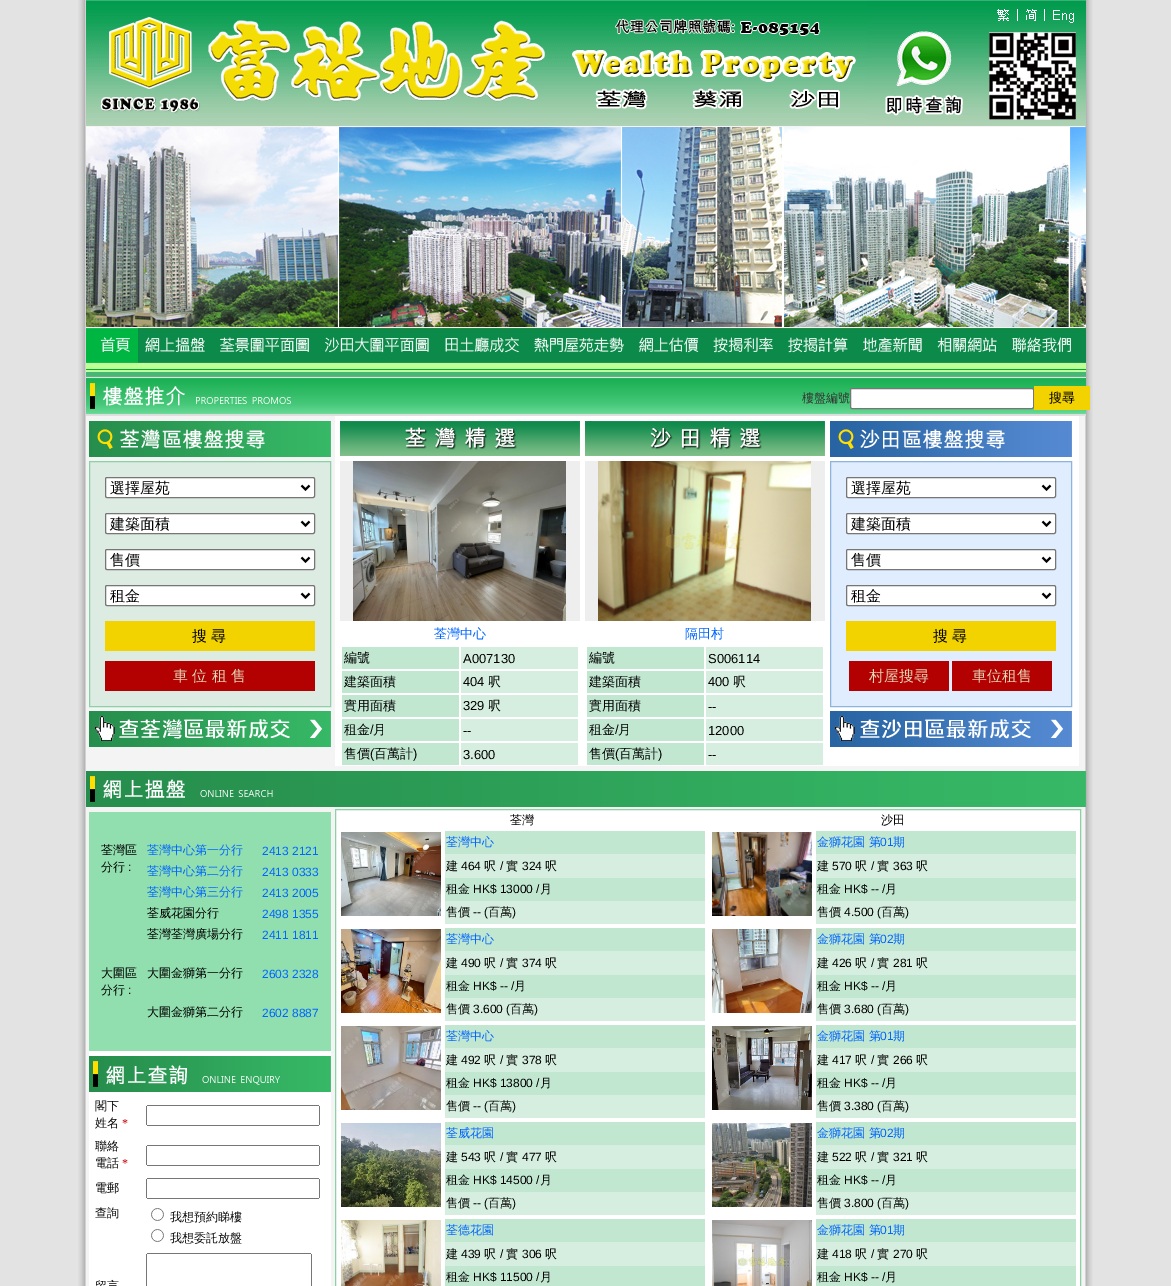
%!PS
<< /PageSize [1171 1286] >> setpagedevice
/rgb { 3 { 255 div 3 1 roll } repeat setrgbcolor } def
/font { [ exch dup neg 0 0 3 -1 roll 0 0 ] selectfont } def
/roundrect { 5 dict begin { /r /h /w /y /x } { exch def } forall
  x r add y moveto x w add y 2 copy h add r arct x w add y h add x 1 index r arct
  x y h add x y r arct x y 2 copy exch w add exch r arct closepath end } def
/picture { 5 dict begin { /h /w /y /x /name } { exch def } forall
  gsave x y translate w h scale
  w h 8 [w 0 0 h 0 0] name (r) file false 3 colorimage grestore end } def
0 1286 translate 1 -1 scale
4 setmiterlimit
227 227 227 rgb
0 0 1171 1286 rectfill
(img/1.rgb) 78 0 1015 1286 picture
(img/2.rgb) 86 0 781 126 picture
(img/3.rgb) 867 0 122 126 picture
(img/4.rgb) 989 0 25 26 picture
(img/5.rgb) 1014 0 6 26 picture
(img/6.rgb) 1020 0 21 26 picture
(img/5.rgb) 1041 0 6 26 picture
(img/7.rgb) 1047 0 39 26 picture
(img/8.rgb) 989 26 97 100 picture
(img/9.rgb) 86 127 1000 200 picture
(img/10.rgb) 86 328 52 35 picture
(img/11.rgb) 138 328 75 35 picture
(img/12.rgb) 213 328 105 35 picture
(img/13.rgb) 318 328 119 35 picture
(img/14.rgb) 437 328 90 35 picture
(img/15.rgb) 527 328 104 35 picture
(img/16.rgb) 631 328 75 35 picture
(img/17.rgb) 706 328 75 35 picture
(img/18.rgb) 781 328 74 35 picture
(img/19.rgb) 855 328 76 35 picture
(img/20.rgb) 931 328 73 35 picture
(img/21.rgb) 1004 328 82 35 picture
(img/22.rgb) 86 363 1000 53 picture
255 255 255 rgb
850.5 388.5 183 20 1.5 roundrect gsave fill grestore
118 118 118 rgb
stroke
242 211 0 rgb
1034 386 56 24 rectfill
(img/23.rgb) 89 421 242 36 picture
220 236 226 rgb
89.5 461.5 moveto 330.5 461.5 lineto 330.5 706.5 lineto 89.5 706.5 lineto closepath gsave fill grestore
139 209 165 rgb
stroke
255 255 255 rgb
105.5 477.5 209 20 1.5 roundrect gsave fill grestore
118 118 118 rgb
stroke
0 0 0 rgb
2 setlinewidth
301.5 485.5 moveto 305.5 489.5 lineto 309.5 485.5 lineto stroke
255 255 255 rgb
105.5 513.5 209 20 1.5 roundrect gsave fill grestore
118 118 118 rgb
1 setlinewidth
stroke
0 0 0 rgb
2 setlinewidth
301.5 521.5 moveto 305.5 525.5 lineto 309.5 521.5 lineto stroke
255 255 255 rgb
105.5 549.5 209 20 1.5 roundrect gsave fill grestore
118 118 118 rgb
1 setlinewidth
stroke
0 0 0 rgb
2 setlinewidth
301.5 557.5 moveto 305.5 561.5 lineto 309.5 557.5 lineto stroke
255 255 255 rgb
105.5 585.5 209 20 1.5 roundrect gsave fill grestore
118 118 118 rgb
1 setlinewidth
stroke
0 0 0 rgb
2 setlinewidth
301.5 593.5 moveto 305.5 597.5 lineto 309.5 593.5 lineto stroke
242 211 0 rgb
105 621 210 30 rectfill
179 0 0 rgb
105 661 210 30 rectfill
(img/24.rgb) 89 711 242 36 picture
255 255 255 rgb
335 416 744 350 rectfill
238 238 238 rgb
340 461 240 160 rectfill
(img/25.rgb) 353 461 213 160 picture
[
  [342 647 117 22 194 231 209]
  [461 647 117 22 213 238 223]
  [342 671 117 22 194 231 209]
  [461 671 117 22 213 238 223]
  [342 695 117 22 194 231 209]
  [461 695 117 22 213 238 223]
  [342 719 117 22 194 231 209]
  [461 719 117 22 213 238 223]
  [342 743 117 22 194 231 209]
  [461 743 117 22 213 238 223]
  [585 461 240 160 238 238 238]
] { aload pop rgb rectfill } forall
(img/26.rgb) 598 461 213 160 picture
[
  [587 647 117 22 194 231 209]
  [706 647 117 22 213 238 223]
  [587 671 117 22 194 231 209]
  [706 671 117 22 213 238 223]
  [587 695 117 22 194 231 209]
  [706 695 117 22 213 238 223]
  [587 719 117 22 194 231 209]
  [706 719 117 22 213 238 223]
  [587 743 117 22 194 231 209]
  [706 743 117 22 213 238 223]
] { aload pop rgb rectfill } forall
(img/27.rgb) 340 421 240 35 picture
(img/28.rgb) 585 421 240 35 picture
(img/29.rgb) 830 421 242 36 picture
224 237 255 rgb
830.5 461.5 moveto 1071.5 461.5 lineto 1071.5 706.5 lineto 830.5 706.5 lineto closepath gsave fill grestore
141 181 219 rgb
1 setlinewidth
stroke
255 255 255 rgb
846.5 477.5 209 20 1.5 roundrect gsave fill grestore
118 118 118 rgb
stroke
0 0 0 rgb
2 setlinewidth
1042.5 485.5 moveto 1046.5 489.5 lineto 1050.5 485.5 lineto stroke
255 255 255 rgb
846.5 513.5 209 20 1.5 roundrect gsave fill grestore
118 118 118 rgb
1 setlinewidth
stroke
0 0 0 rgb
2 setlinewidth
1042.5 521.5 moveto 1046.5 525.5 lineto 1050.5 521.5 lineto stroke
255 255 255 rgb
846.5 549.5 209 20 1.5 roundrect gsave fill grestore
118 118 118 rgb
1 setlinewidth
stroke
0 0 0 rgb
2 setlinewidth
1042.5 557.5 moveto 1046.5 561.5 lineto 1050.5 557.5 lineto stroke
255 255 255 rgb
846.5 585.5 209 20 1.5 roundrect gsave fill grestore
118 118 118 rgb
1 setlinewidth
stroke
0 0 0 rgb
2 setlinewidth
1042.5 593.5 moveto 1046.5 597.5 lineto 1050.5 593.5 lineto stroke
[
  [846 621 210 30 242 211 0]
  [849 661 100 30 179 0 0]
  [952 661 100 30 179 0 0]
] { aload pop rgb rectfill } forall
(img/30.rgb) 830 711 242 36 picture
(img/31.rgb) 86 771 1000 36 picture
145 223 174 rgb
89 812 242 239 rectfill
(img/32.rgb) 89 1051 242 235 picture
255 255 255 rgb
335.5 809.5 moveto 1080.5 809.5 lineto 1080.5 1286.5 lineto 335.5 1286.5 lineto closepath gsave fill grestore
139 209 165 rgb
1 setlinewidth
stroke
(img/33.rgb) 341 832 100 84 picture
[
  [445 831 260 23 194 231 209]
  [445 854 260 24 213 238 223]
  [445 878 260 23 194 231 209]
  [445 901 260 23 213 238 223]
] { aload pop rgb rectfill } forall
(img/34.rgb) 341 929 100 84 picture
[
  [445 928 260 23 194 231 209]
  [445 951 260 24 213 238 223]
  [445 975 260 23 194 231 209]
  [445 998 260 23 213 238 223]
] { aload pop rgb rectfill } forall
(img/35.rgb) 341 1026 100 84 picture
[
  [445 1025 260 23 194 231 209]
  [445 1048 260 24 213 238 223]
  [445 1072 260 23 194 231 209]
  [445 1095 260 23 213 238 223]
] { aload pop rgb rectfill } forall
(img/36.rgb) 341 1123 100 84 picture
[
  [445 1122 260 23 194 231 209]
  [445 1145 260 24 213 238 223]
  [445 1169 260 23 194 231 209]
  [445 1192 260 23 213 238 223]
] { aload pop rgb rectfill } forall
(img/37.rgb) 341 1220 100 66 picture
[
  [445 1219 260 23 194 231 209]
  [445 1242 260 24 213 238 223]
  [445 1266 260 20 194 231 209]
] { aload pop rgb rectfill } forall
(img/38.rgb) 712 832 100 84 picture
[
  [816 831 260 23 194 231 209]
  [816 854 260 24 213 238 223]
  [816 878 260 23 194 231 209]
  [816 901 260 23 213 238 223]
] { aload pop rgb rectfill } forall
(img/39.rgb) 712 929 100 84 picture
[
  [816 928 260 23 194 231 209]
  [816 951 260 24 213 238 223]
  [816 975 260 23 194 231 209]
  [816 998 260 23 213 238 223]
] { aload pop rgb rectfill } forall
(img/40.rgb) 712 1026 100 84 picture
[
  [816 1025 260 23 194 231 209]
  [816 1048 260 24 213 238 223]
  [816 1072 260 23 194 231 209]
  [816 1095 260 23 213 238 223]
] { aload pop rgb rectfill } forall
(img/41.rgb) 712 1123 100 84 picture
[
  [816 1122 260 23 194 231 209]
  [816 1145 260 24 213 238 223]
  [816 1169 260 23 194 231 209]
  [816 1192 260 23 213 238 223]
] { aload pop rgb rectfill } forall
(img/42.rgb) 712 1220 100 66 picture
[
  [816 1219 260 23 194 231 209]
  [816 1242 260 24 213 238 223]
  [816 1266 260 20 194 231 209]
] { aload pop rgb rectfill } forall
/WenQuanYiZenHei-Medium 12 font
51 51 51 rgb
802 402 moveto (樓盤編號) show
/WenQuanYiZenHei-Medium 13 font
0 0 0 rgb
1049 402 moveto (搜尋) show
/WenQuanYiZenHei-Medium 15 font
[
  [(選擇屋苑) 110 493]
  [(建築面積) 110 529]
  [(售價) 110 565]
  [(租金) 110 601]
  [(搜 尋) 192 641]
] { aload pop moveto show } forall
227 216 185 rgb
173 681 moveto (車 位 租 售) show
/WenQuanYiZenHei-Medium 13 font
0 102 255 rgb
434 638 moveto (荃灣中心) show
0 0 0 rgb
344 662 moveto (編號) show
/LiberationSans-Regular 13 font
463 663 moveto (A007130) show
/WenQuanYiZenHei-Medium 13 font
344 686 moveto (建築面積) show
/LiberationSans-Regular 13 font
463 686 moveto (404) show
/WenQuanYiZenHei-Medium 13 font
488 686 moveto (呎) show
344 710 moveto (實用面積) show
/LiberationSans-Regular 13 font
463 710 moveto (329) show
/WenQuanYiZenHei-Medium 13 font
488 710 moveto (呎) show
344 734 moveto (租金) show
/LiberationSans-Regular 13 font
370 734 moveto (/) show
/WenQuanYiZenHei-Medium 13 font
373 734 moveto (月) show
/LiberationSans-Regular 13 font
463 735 moveto (--) show
/WenQuanYiZenHei-Medium 13 font
344 758 moveto (售價) show
/LiberationSans-Regular 13 font
370 758 moveto (\() show
/WenQuanYiZenHei-Medium 13 font
374 758 moveto (百萬計) show
/LiberationSans-Regular 13 font
413 758 moveto (\)) show
463 759 moveto (3.600) show
/WenQuanYiZenHei-Medium 13 font
0 102 255 rgb
685 638 moveto (隔田村) show
0 0 0 rgb
589 662 moveto (編號) show
/LiberationSans-Regular 13 font
708 663 moveto (S006114) show
/WenQuanYiZenHei-Medium 13 font
589 686 moveto (建築面積) show
/LiberationSans-Regular 13 font
708 686 moveto (400) show
/WenQuanYiZenHei-Medium 13 font
733 686 moveto (呎) show
589 710 moveto (實用面積) show
/LiberationSans-Regular 13 font
708 711 moveto (--) show
/WenQuanYiZenHei-Medium 13 font
589 734 moveto (租金) show
/LiberationSans-Regular 13 font
615 734 moveto (/) show
/WenQuanYiZenHei-Medium 13 font
618 734 moveto (月) show
/LiberationSans-Regular 13 font
708 735 moveto (12000) show
/WenQuanYiZenHei-Medium 13 font
589 758 moveto (售價) show
/LiberationSans-Regular 13 font
615 758 moveto (\() show
/WenQuanYiZenHei-Medium 13 font
619 758 moveto (百萬計) show
/LiberationSans-Regular 13 font
658 758 moveto (\)) show
708 759 moveto (--) show
/WenQuanYiZenHei-Medium 15 font
[
  [(選擇屋苑) 851 493]
  [(建築面積) 851 529]
  [(售價) 851 565]
  [(租金) 851 601]
  [(搜 尋) 933 641]
] { aload pop moveto show } forall
227 216 185 rgb
869 681 moveto (村屋搜尋) show
972 681 moveto (車位租售) show
/WenQuanYiZenHei-Medium 12 font
0 0 0 rgb
101 854 moveto (荃灣區) show
101 871 moveto (分行) show
/LiberationSans-Regular 12 font
128 871 moveto (:) show
/WenQuanYiZenHei-Medium 12 font
0 102 255 rgb
147 854 moveto (荃灣中心第一分行) show
/LiberationSans-Regular 12 font
262 855 moveto (2413 2121) show
/WenQuanYiZenHei-Medium 12 font
147 875 moveto (荃灣中心第二分行) show
/LiberationSans-Regular 12 font
262 876 moveto (2413 0333) show
/WenQuanYiZenHei-Medium 12 font
147 896 moveto (荃灣中心第三分行) show
/LiberationSans-Regular 12 font
262 897 moveto (2413 2005) show
/WenQuanYiZenHei-Medium 12 font
0 0 0 rgb
147 917 moveto (荃威花園分行) show
/LiberationSans-Regular 12 font
0 102 255 rgb
262 918 moveto (2498 1355) show
/WenQuanYiZenHei-Medium 12 font
0 0 0 rgb
147 938 moveto (荃灣荃灣廣場分行) show
/LiberationSans-Regular 12 font
0 102 255 rgb
262 939 moveto (2411 1811) show
/WenQuanYiZenHei-Medium 12 font
0 0 0 rgb
101 977 moveto (大圍區) show
101 994 moveto (分行) show
/LiberationSans-Regular 12 font
128 994 moveto (:) show
/WenQuanYiZenHei-Medium 12 font
147 977 moveto (大圍金獅第一分行) show
/LiberationSans-Regular 12 font
0 102 255 rgb
262 978 moveto (2603 2328) show
/WenQuanYiZenHei-Medium 12 font
0 0 0 rgb
147 1016 moveto (大圍金獅第二分行) show
/LiberationSans-Regular 12 font
0 102 255 rgb
262 1017 moveto (2602 8887) show
/WenQuanYiZenHei-Medium 12 font
0 0 0 rgb
510 824 moveto (荃灣) show
0 102 255 rgb
446 846 moveto (荃灣中心) show
0 0 0 rgb
446 870 moveto (建) show
/LiberationSans-Regular 12 font
461 870 moveto (464) show
/WenQuanYiZenHei-Medium 12 font
484 870 moveto (呎) show
/LiberationSans-Regular 12 font
500 870 moveto (/) show
/WenQuanYiZenHei-Medium 12 font
506 870 moveto (實) show
/LiberationSans-Regular 12 font
522 870 moveto (324) show
/WenQuanYiZenHei-Medium 12 font
545 870 moveto (呎) show
446 893 moveto (租金) show
/LiberationSans-Regular 12 font
473 893 moveto (HK$ 13000 /) show
/WenQuanYiZenHei-Medium 12 font
540 893 moveto (月) show
446 916 moveto (售價) show
/LiberationSans-Regular 12 font
473 916 moveto (-- \() show
/WenQuanYiZenHei-Medium 12 font
488 916 moveto (百萬) show
/LiberationSans-Regular 12 font
512 916 moveto (\)) show
/WenQuanYiZenHei-Medium 12 font
0 102 255 rgb
446 943 moveto (荃灣中心) show
0 0 0 rgb
446 967 moveto (建) show
/LiberationSans-Regular 12 font
461 967 moveto (490) show
/WenQuanYiZenHei-Medium 12 font
484 967 moveto (呎) show
/LiberationSans-Regular 12 font
500 967 moveto (/) show
/WenQuanYiZenHei-Medium 12 font
506 967 moveto (實) show
/LiberationSans-Regular 12 font
522 967 moveto (374) show
/WenQuanYiZenHei-Medium 12 font
545 967 moveto (呎) show
446 990 moveto (租金) show
/LiberationSans-Regular 12 font
473 990 moveto (HK$ -- /) show
/WenQuanYiZenHei-Medium 12 font
514 990 moveto (月) show
446 1013 moveto (售價) show
/LiberationSans-Regular 12 font
473 1013 moveto (3.600 \() show
/WenQuanYiZenHei-Medium 12 font
510 1013 moveto (百萬) show
/LiberationSans-Regular 12 font
534 1013 moveto (\)) show
/WenQuanYiZenHei-Medium 12 font
0 102 255 rgb
446 1040 moveto (荃灣中心) show
0 0 0 rgb
446 1064 moveto (建) show
/LiberationSans-Regular 12 font
461 1064 moveto (492) show
/WenQuanYiZenHei-Medium 12 font
484 1064 moveto (呎) show
/LiberationSans-Regular 12 font
500 1064 moveto (/) show
/WenQuanYiZenHei-Medium 12 font
506 1064 moveto (實) show
/LiberationSans-Regular 12 font
522 1064 moveto (378) show
/WenQuanYiZenHei-Medium 12 font
545 1064 moveto (呎) show
446 1087 moveto (租金) show
/LiberationSans-Regular 12 font
473 1087 moveto (HK$ 13800 /) show
/WenQuanYiZenHei-Medium 12 font
540 1087 moveto (月) show
446 1110 moveto (售價) show
/LiberationSans-Regular 12 font
473 1110 moveto (-- \() show
/WenQuanYiZenHei-Medium 12 font
488 1110 moveto (百萬) show
/LiberationSans-Regular 12 font
512 1110 moveto (\)) show
/WenQuanYiZenHei-Medium 12 font
0 102 255 rgb
446 1137 moveto (荃威花園) show
0 0 0 rgb
446 1161 moveto (建) show
/LiberationSans-Regular 12 font
461 1161 moveto (543) show
/WenQuanYiZenHei-Medium 12 font
484 1161 moveto (呎) show
/LiberationSans-Regular 12 font
500 1161 moveto (/) show
/WenQuanYiZenHei-Medium 12 font
506 1161 moveto (實) show
/LiberationSans-Regular 12 font
522 1161 moveto (477) show
/WenQuanYiZenHei-Medium 12 font
545 1161 moveto (呎) show
446 1184 moveto (租金) show
/LiberationSans-Regular 12 font
473 1184 moveto (HK$ 14500 /) show
/WenQuanYiZenHei-Medium 12 font
540 1184 moveto (月) show
446 1207 moveto (售價) show
/LiberationSans-Regular 12 font
473 1207 moveto (-- \() show
/WenQuanYiZenHei-Medium 12 font
488 1207 moveto (百萬) show
/LiberationSans-Regular 12 font
512 1207 moveto (\)) show
/WenQuanYiZenHei-Medium 12 font
0 102 255 rgb
446 1234 moveto (荃德花園) show
0 0 0 rgb
446 1258 moveto (建) show
/LiberationSans-Regular 12 font
461 1258 moveto (439) show
/WenQuanYiZenHei-Medium 12 font
484 1258 moveto (呎) show
/LiberationSans-Regular 12 font
500 1258 moveto (/) show
/WenQuanYiZenHei-Medium 12 font
506 1258 moveto (實) show
/LiberationSans-Regular 12 font
522 1258 moveto (306) show
/WenQuanYiZenHei-Medium 12 font
545 1258 moveto (呎) show
446 1281 moveto (租金) show
/LiberationSans-Regular 12 font
473 1281 moveto (HK$ 11500 /) show
/WenQuanYiZenHei-Medium 12 font
540 1281 moveto (月) show
881 824 moveto (沙田) show
0 102 255 rgb
817 846 moveto (金獅花園 第) show
/LiberationSans-Regular 12 font
880 846 moveto (01) show
/WenQuanYiZenHei-Medium 12 font
893 846 moveto (期) show
0 0 0 rgb
817 870 moveto (建) show
/LiberationSans-Regular 12 font
832 870 moveto (570) show
/WenQuanYiZenHei-Medium 12 font
855 870 moveto (呎) show
/LiberationSans-Regular 12 font
871 870 moveto (/) show
/WenQuanYiZenHei-Medium 12 font
877 870 moveto (實) show
/LiberationSans-Regular 12 font
893 870 moveto (363) show
/WenQuanYiZenHei-Medium 12 font
916 870 moveto (呎) show
817 893 moveto (租金) show
/LiberationSans-Regular 12 font
844 893 moveto (HK$ -- /) show
/WenQuanYiZenHei-Medium 12 font
885 893 moveto (月) show
817 916 moveto (售價) show
/LiberationSans-Regular 12 font
844 916 moveto (4.500 \() show
/WenQuanYiZenHei-Medium 12 font
881 916 moveto (百萬) show
/LiberationSans-Regular 12 font
905 916 moveto (\)) show
/WenQuanYiZenHei-Medium 12 font
0 102 255 rgb
817 943 moveto (金獅花園 第) show
/LiberationSans-Regular 12 font
880 943 moveto (02) show
/WenQuanYiZenHei-Medium 12 font
893 943 moveto (期) show
0 0 0 rgb
817 967 moveto (建) show
/LiberationSans-Regular 12 font
832 967 moveto (426) show
/WenQuanYiZenHei-Medium 12 font
855 967 moveto (呎) show
/LiberationSans-Regular 12 font
871 967 moveto (/) show
/WenQuanYiZenHei-Medium 12 font
877 967 moveto (實) show
/LiberationSans-Regular 12 font
893 967 moveto (281) show
/WenQuanYiZenHei-Medium 12 font
916 967 moveto (呎) show
817 990 moveto (租金) show
/LiberationSans-Regular 12 font
844 990 moveto (HK$ -- /) show
/WenQuanYiZenHei-Medium 12 font
885 990 moveto (月) show
817 1013 moveto (售價) show
/LiberationSans-Regular 12 font
844 1013 moveto (3.680 \() show
/WenQuanYiZenHei-Medium 12 font
881 1013 moveto (百萬) show
/LiberationSans-Regular 12 font
905 1013 moveto (\)) show
/WenQuanYiZenHei-Medium 12 font
0 102 255 rgb
817 1040 moveto (金獅花園 第) show
/LiberationSans-Regular 12 font
880 1040 moveto (01) show
/WenQuanYiZenHei-Medium 12 font
893 1040 moveto (期) show
0 0 0 rgb
817 1064 moveto (建) show
/LiberationSans-Regular 12 font
832 1064 moveto (417) show
/WenQuanYiZenHei-Medium 12 font
855 1064 moveto (呎) show
/LiberationSans-Regular 12 font
871 1064 moveto (/) show
/WenQuanYiZenHei-Medium 12 font
877 1064 moveto (實) show
/LiberationSans-Regular 12 font
893 1064 moveto (266) show
/WenQuanYiZenHei-Medium 12 font
916 1064 moveto (呎) show
817 1087 moveto (租金) show
/LiberationSans-Regular 12 font
844 1087 moveto (HK$ -- /) show
/WenQuanYiZenHei-Medium 12 font
885 1087 moveto (月) show
817 1110 moveto (售價) show
/LiberationSans-Regular 12 font
844 1110 moveto (3.380 \() show
/WenQuanYiZenHei-Medium 12 font
881 1110 moveto (百萬) show
/LiberationSans-Regular 12 font
905 1110 moveto (\)) show
/WenQuanYiZenHei-Medium 12 font
0 102 255 rgb
817 1137 moveto (金獅花園 第) show
/LiberationSans-Regular 12 font
880 1137 moveto (02) show
/WenQuanYiZenHei-Medium 12 font
893 1137 moveto (期) show
0 0 0 rgb
817 1161 moveto (建) show
/LiberationSans-Regular 12 font
832 1161 moveto (522) show
/WenQuanYiZenHei-Medium 12 font
855 1161 moveto (呎) show
/LiberationSans-Regular 12 font
871 1161 moveto (/) show
/WenQuanYiZenHei-Medium 12 font
877 1161 moveto (實) show
/LiberationSans-Regular 12 font
893 1161 moveto (321) show
/WenQuanYiZenHei-Medium 12 font
916 1161 moveto (呎) show
817 1184 moveto (租金) show
/LiberationSans-Regular 12 font
844 1184 moveto (HK$ -- /) show
/WenQuanYiZenHei-Medium 12 font
885 1184 moveto (月) show
817 1207 moveto (售價) show
/LiberationSans-Regular 12 font
844 1207 moveto (3.800 \() show
/WenQuanYiZenHei-Medium 12 font
881 1207 moveto (百萬) show
/LiberationSans-Regular 12 font
905 1207 moveto (\)) show
/WenQuanYiZenHei-Medium 12 font
0 102 255 rgb
817 1234 moveto (金獅花園 第) show
/LiberationSans-Regular 12 font
880 1234 moveto (01) show
/WenQuanYiZenHei-Medium 12 font
893 1234 moveto (期) show
0 0 0 rgb
817 1258 moveto (建) show
/LiberationSans-Regular 12 font
832 1258 moveto (418) show
/WenQuanYiZenHei-Medium 12 font
855 1258 moveto (呎) show
/LiberationSans-Regular 12 font
871 1258 moveto (/) show
/WenQuanYiZenHei-Medium 12 font
877 1258 moveto (實) show
/LiberationSans-Regular 12 font
893 1258 moveto (270) show
/WenQuanYiZenHei-Medium 12 font
916 1258 moveto (呎) show
817 1281 moveto (租金) show
/LiberationSans-Regular 12 font
844 1281 moveto (HK$ -- /) show
/WenQuanYiZenHei-Medium 12 font
885 1281 moveto (月) show
showpage
